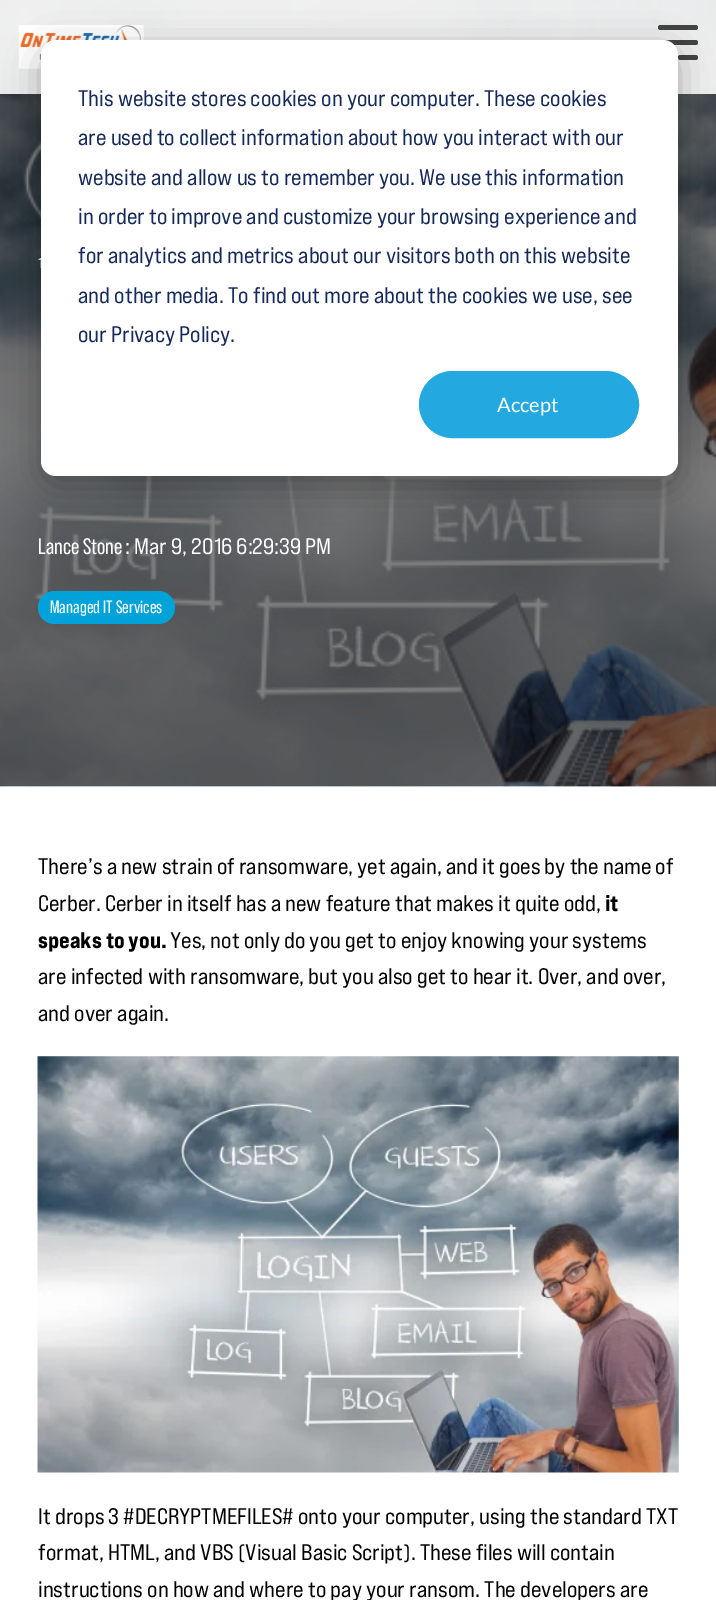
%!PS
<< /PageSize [716 1600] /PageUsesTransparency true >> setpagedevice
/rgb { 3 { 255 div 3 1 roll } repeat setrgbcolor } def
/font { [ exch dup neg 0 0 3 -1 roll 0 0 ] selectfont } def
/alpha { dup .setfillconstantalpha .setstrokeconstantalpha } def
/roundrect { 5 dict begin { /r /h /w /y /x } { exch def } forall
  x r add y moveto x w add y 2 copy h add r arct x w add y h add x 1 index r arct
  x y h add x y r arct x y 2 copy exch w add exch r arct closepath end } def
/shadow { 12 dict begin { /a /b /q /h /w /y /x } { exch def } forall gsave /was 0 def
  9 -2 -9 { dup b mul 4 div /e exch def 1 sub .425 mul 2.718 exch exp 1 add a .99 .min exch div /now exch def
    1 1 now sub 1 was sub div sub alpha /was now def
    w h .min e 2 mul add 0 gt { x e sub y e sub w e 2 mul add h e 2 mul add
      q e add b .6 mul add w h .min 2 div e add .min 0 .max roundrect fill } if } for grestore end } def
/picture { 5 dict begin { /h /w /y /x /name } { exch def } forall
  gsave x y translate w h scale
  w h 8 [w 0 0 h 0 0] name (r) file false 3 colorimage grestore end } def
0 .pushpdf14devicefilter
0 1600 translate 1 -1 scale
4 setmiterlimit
255 255 255 rgb
0 0 716 1600 rectfill
(img/2.rgb) 0 786 716 1 picture
(img/3.rgb) 0 0 716 787 picture
0.9 alpha
0 0 716 94 rectfill
1 alpha
(img/1.rgb) 18 25 126 44 picture
68 68 68 rgb
658 25 40 5 2.5 roundrect fill
658 40 40 5 2.5 roundrect fill
678 55 20 5 2.5 roundrect fill
0 0 0 rgb
41 50 637 436 15 17.5 0.28 shadow
255 255 255 rgb
41 40 637 436 15 roundrect fill
36 168 224 rgb
419.5 371.5 219 66 33 roundrect gsave fill grestore
stroke
0 163 217 rgb
38 591 137 33 16.5 roundrect fill
(img/4.rgb) 37 1056 642 417 picture
/BebasNeue-Regular 22.5 font
21 41 90 rgb
[
  [(This website stores cookies on your computer. These cookies) 78 106]
  [(are used to collect information about how you interact with our) 78 145]
  [(website and allow us to remember you. We use this information) 78 185]
  [(in order to improve and customize your browsing experience and) 78 224]
  [(for analytics and metrics about our visitors both on this website) 78 263]
  [(and other media. To find out more about the cookies we use, see) 78 303]
  [(our Privacy Policy.) 78 342]
] { aload pop moveto show } forall
/Lato-Regular 20 font
255 255 255 rgb
497 412 moveto (Accept) show
/BebasNeue-Regular 15 font
38 268 moveto (1) show
/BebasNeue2-Regular 22.5 font
38 554 moveto (Lance Stone) show
/BebasNeue-Regular 22.5 font
125 554 moveto (: Mar 9, 2016 6:29:39 PM) show
/BebasNeue2-Regular 18 font
50 613 moveto (Managed IT Services) show
/BebasNeue-Regular 22.5 font
0 0 0 rgb
38 874 moveto (There’s a new strain of ransomware, yet again, and it goes by the name of) show
38 911 moveto (Cerber. Cerber in itself has a new feature that makes it quite odd,) show
/BebasNeue-ExtraBold 22.5 font
605 911 moveto (it) show
38 948 moveto (speaks to you.) show
/BebasNeue-Regular 22.5 font
[
  [(Yes, not only do you get to enjoy knowing your systems) 170 948]
  [(are infected with ransomware, but you also get to hear it. Over, and over,) 38 984]
  [(and over again.) 38 1021]
  [(It drops 3 #DECRYPTMEFILES# onto your computer, using the standard TXT) 38 1524]
  [(format, HTML, and VBS \(Visual Basic Script\). These files will contain) 38 1560]
  [(instructions on how and where to pay your ransom. The developers are) 38 1597]
] { aload pop moveto show } forall
.poppdf14devicefilter showpage
